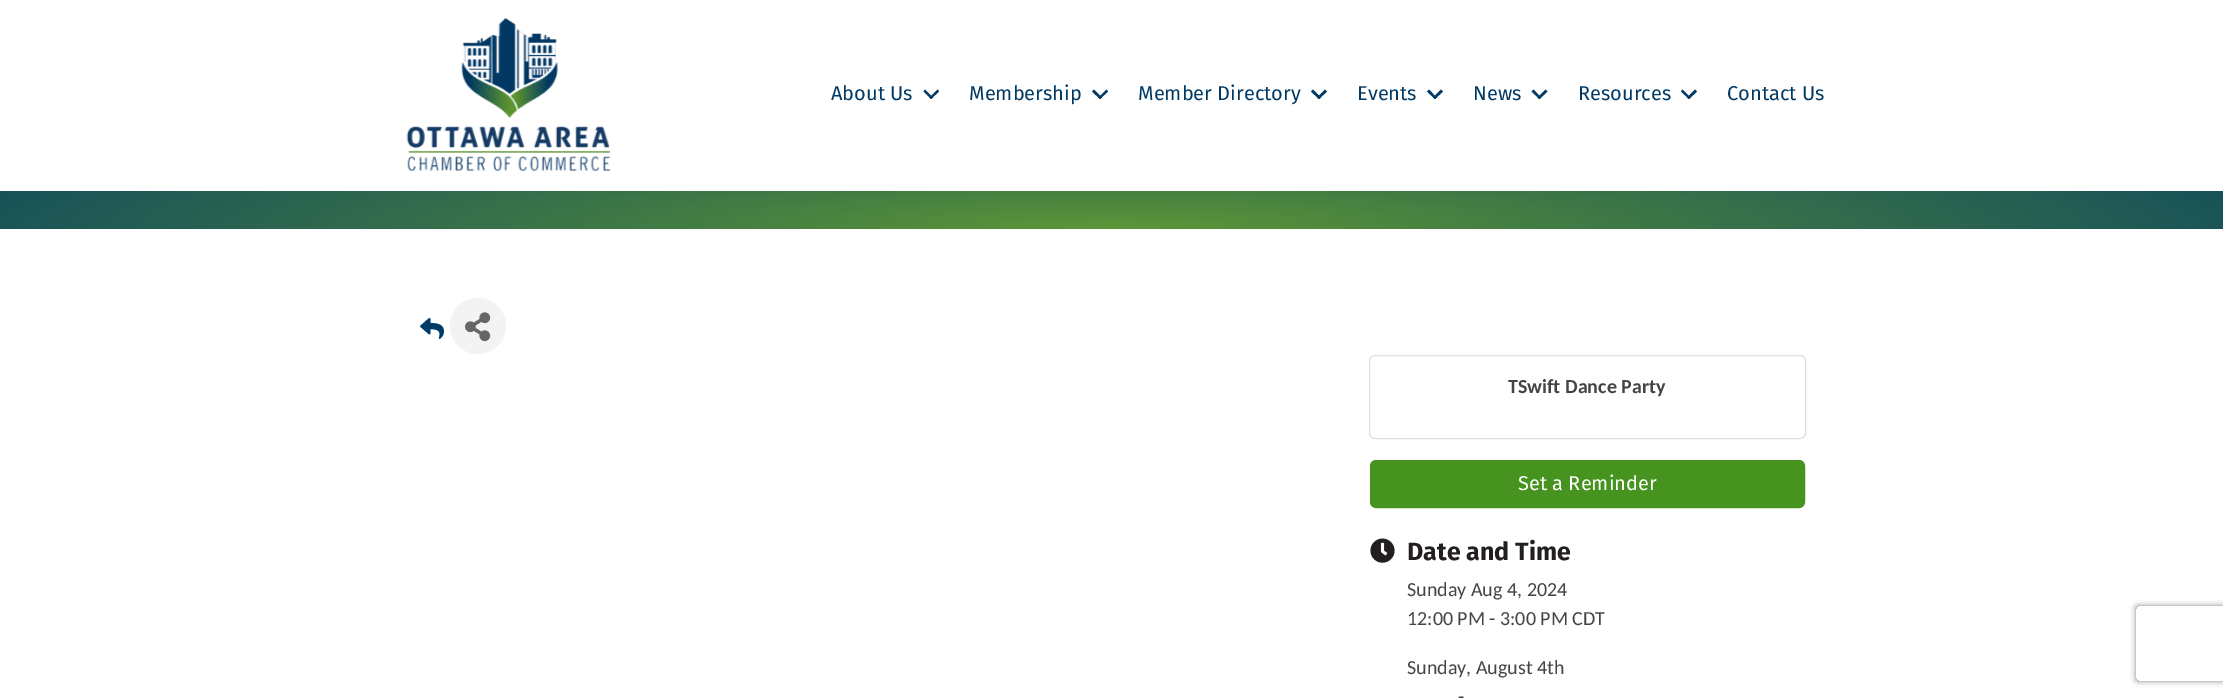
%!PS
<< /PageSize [2223 698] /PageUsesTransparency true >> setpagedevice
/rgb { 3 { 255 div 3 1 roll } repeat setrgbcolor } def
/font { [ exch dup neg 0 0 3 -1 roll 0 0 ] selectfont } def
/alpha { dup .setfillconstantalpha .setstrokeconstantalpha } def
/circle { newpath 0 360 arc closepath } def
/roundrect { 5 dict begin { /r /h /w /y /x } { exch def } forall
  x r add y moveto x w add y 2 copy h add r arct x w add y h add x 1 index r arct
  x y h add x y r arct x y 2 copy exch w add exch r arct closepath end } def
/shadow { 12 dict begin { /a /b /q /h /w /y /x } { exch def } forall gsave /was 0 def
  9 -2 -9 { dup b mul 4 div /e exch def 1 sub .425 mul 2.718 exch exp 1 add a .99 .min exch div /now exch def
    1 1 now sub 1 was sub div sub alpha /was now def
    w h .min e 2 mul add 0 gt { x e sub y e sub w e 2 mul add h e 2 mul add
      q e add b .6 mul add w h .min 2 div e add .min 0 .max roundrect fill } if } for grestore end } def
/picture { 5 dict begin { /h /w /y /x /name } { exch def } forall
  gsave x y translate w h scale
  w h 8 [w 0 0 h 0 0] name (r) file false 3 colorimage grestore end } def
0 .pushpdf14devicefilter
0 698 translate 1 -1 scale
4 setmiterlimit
255 255 255 rgb
0 0 2223 698 rectfill
(img/1.rgb) 406 18 205 154 picture
0 57 100 rgb
937.5 89.5 moveto 939 91.5 lineto 931 99 lineto 929.5 97.5 lineto closepath fill
925 89.5 moveto 933 97.5 lineto 931 99 lineto 923.5 91.5 lineto closepath fill
1106.5 89.5 moveto 1108 91.5 lineto 1100 99 lineto 1098.5 97.5 lineto closepath fill
1094 89.5 moveto 1102 97.5 lineto 1100 99 lineto 1092 91.5 lineto closepath fill
1325 89.5 moveto 1327 91.5 lineto 1319 99 lineto 1317 97.5 lineto closepath fill
1313 89.5 moveto 1321 97.5 lineto 1319 99 lineto 1311 91.5 lineto closepath fill
1441 89.5 moveto 1443 91.5 lineto 1435 99 lineto 1433 97.5 lineto closepath fill
1429 89.5 moveto 1436.5 97.5 lineto 1435 99 lineto 1427 91.5 lineto closepath fill
1545.5 89.5 moveto 1547.5 91.5 lineto 1539.5 99 lineto 1537.5 97.5 lineto closepath fill
1533.5 89.5 moveto 1541 97.5 lineto 1539.5 99 lineto 1531.5 91.5 lineto closepath fill
1695 89.5 moveto 1697 91.5 lineto 1689 99 lineto 1687 97.5 lineto closepath fill
1682.5 89.5 moveto 1690.5 97.5 lineto 1689 99 lineto 1681 91.5 lineto closepath fill
gsave 0 191 moveto 2223 191 lineto 2223 229 lineto 0 229 lineto closepath clip newpath 1112 229 translate 1572 161 scale
<< /ShadingType 3 /ColorSpace /DeviceRGB /Coords [0 0 0 0 0 1] /Extend [true true] /Function << /FunctionType 2 /Domain [0 1] /C0 [0.365 0.592 0.216] /C1 [0 0.224 0.392] /N 1 >> >> shfill grestore
(img/2.rgb) 420 318 24 21 picture
243 243 243 rgb
478 326 28 circle fill
(img/3.rgb) 465 312 26 30 picture
223 223 223 rgb
1369.5 355.5 436 83 5.5 roundrect stroke
70 147 32 rgb
1370.5 460.5 434 47 5.5 roundrect gsave fill grestore
stroke
(img/4.rgb) 1370 538 25 25 picture
gsave
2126 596 moveto 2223 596 lineto 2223 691 lineto 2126 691 lineto closepath 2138.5 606 moveto 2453.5 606 lineto 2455 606 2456 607 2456 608.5 curveto 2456 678.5 lineto 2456 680 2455 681 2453.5 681 curveto 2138.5 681 lineto 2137 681 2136 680 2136 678.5 curveto 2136 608.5 lineto 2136 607 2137 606 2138.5 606 curveto closepath eoclip newpath
128 128 128 rgb
2136 606 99 75 2.5 3 1 shadow
grestore
/FiraSans-Regular 20 font
0 57 100 rgb
[
  [(About Us) 831 100]
  [(Membership) 969 100]
  [(Member Directory) 1138 100]
  [(Events) 1357 100]
  [(News) 1473 100]
  [(Resources) 1578 100]
  [(Contact Us) 1727 100]
] { aload pop moveto show } forall
/Carlito-Bold 20 font
68 68 68 rgb
1508 393 moveto (TSwift Dance Party) show
/FiraSans-Regular 20 font
255 255 255 rgb
1518 490 moveto (Set a Reminder) show
/FiraSans-Bold 25 font
35 31 32 rgb
1407 560 moveto (Date and Time) show
/Carlito-Regular 20 font
68 68 68 rgb
[
  [(Sunday Aug 4, 2024) 1407 596]
  [(12:00 PM - 3:00 PM CDT) 1407 625]
  [(Sunday, August 4th) 1407 674]
  [(-) 1458 703]
] { aload pop moveto show } forall
.poppdf14devicefilter showpage
